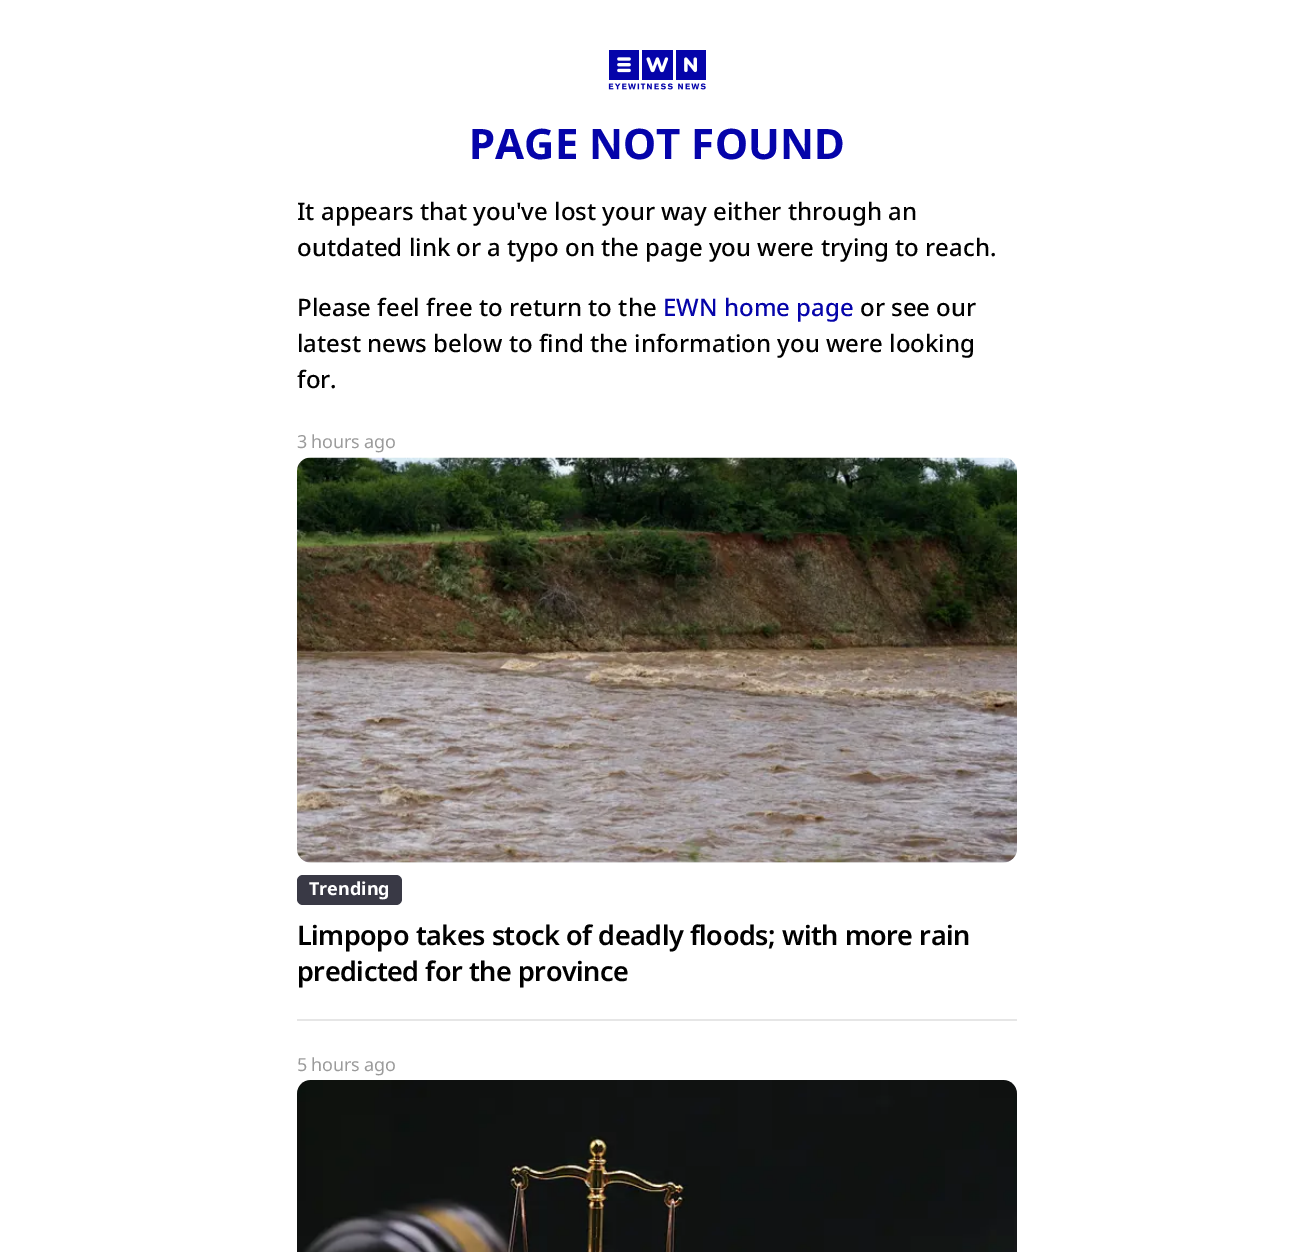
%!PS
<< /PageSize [1313 1252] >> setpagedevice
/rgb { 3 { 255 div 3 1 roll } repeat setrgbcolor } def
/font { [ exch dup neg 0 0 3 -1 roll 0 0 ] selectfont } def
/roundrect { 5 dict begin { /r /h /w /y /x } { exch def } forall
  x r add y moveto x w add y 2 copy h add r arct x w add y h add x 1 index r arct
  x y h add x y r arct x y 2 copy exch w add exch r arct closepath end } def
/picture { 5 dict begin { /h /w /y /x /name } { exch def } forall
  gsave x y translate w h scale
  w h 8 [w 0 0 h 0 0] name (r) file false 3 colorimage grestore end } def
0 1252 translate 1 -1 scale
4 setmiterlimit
255 255 255 rgb
0 0 1313 1252 rectfill
(img/1.rgb) 608 50 98 40 picture
230 230 230 rgb
297 1019 720 2 rectfill
237 237 237 rgb
297 458 720 405 14 roundrect fill
(img/2.rgb) 297 457 720 406 picture
57 57 69 rgb
297 875 105 30 6 roundrect fill
(img/3.rgb) 297 1080 720 172 picture
/NotoSans-Bold 42 font
5 4 170 rgb
469 159 moveto (PAGE NOT FOUND) show
/NotoSans-Medium 24 font
0 0 0 rgb
[
  [(It appears that you've lost your way either through an) 297 220]
  [(outdated link or a typo on the page you were trying to reach.) 297 256]
  [(Please feel free to return to the) 297 316]
] { aload pop moveto show } forall
5 4 170 rgb
663 316 moveto (EWN home page) show
0 0 0 rgb
[
  [(or see our) 860 316]
  [(latest news below to find the information you were looking) 297 352]
  [(for.) 297 388]
] { aload pop moveto show } forall
/NotoSans-Regular 18 font
155 155 155 rgb
297 448 moveto -0.25 0 (3 hours ago) ashow
/NotoSans-Bold 18 font
255 255 255 rgb
309 895 moveto (Trending) show
/NotoSans-SemiBold 27 font
0 0 0 rgb
297 945 moveto -0.48 0 (Limpopo takes stock of deadly floods; with more rain) ashow
297 981 moveto -0.48 0 (predicted for the province) ashow
/NotoSans-Regular 18 font
155 155 155 rgb
297 1071 moveto -0.25 0 (5 hours ago) ashow
showpage
